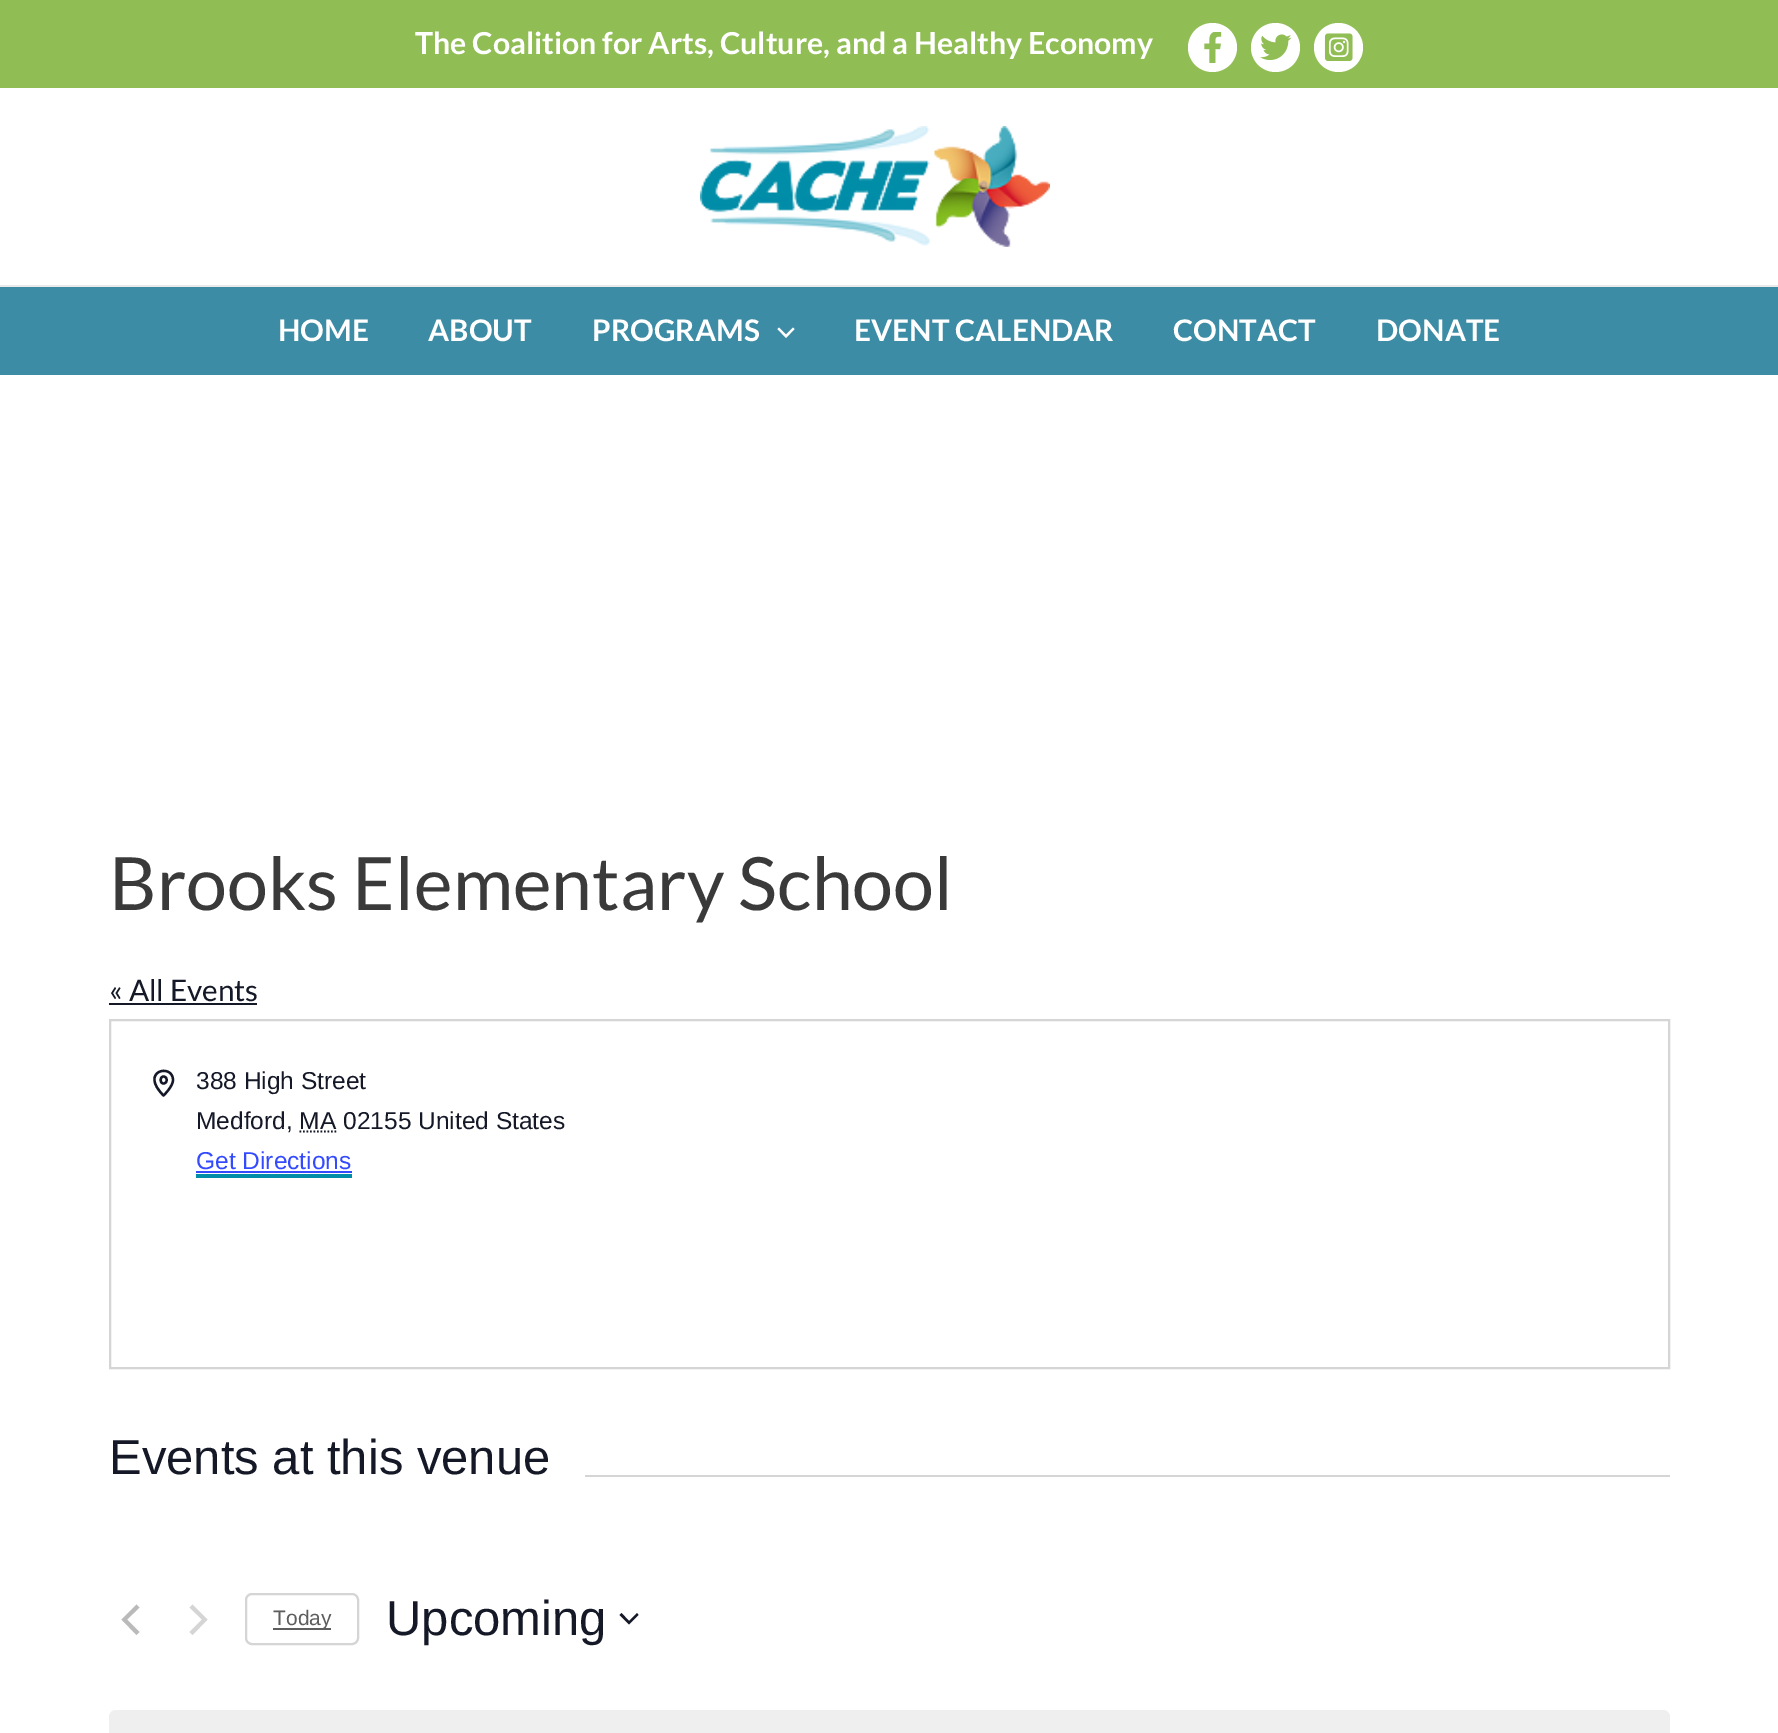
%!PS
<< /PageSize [1778 1733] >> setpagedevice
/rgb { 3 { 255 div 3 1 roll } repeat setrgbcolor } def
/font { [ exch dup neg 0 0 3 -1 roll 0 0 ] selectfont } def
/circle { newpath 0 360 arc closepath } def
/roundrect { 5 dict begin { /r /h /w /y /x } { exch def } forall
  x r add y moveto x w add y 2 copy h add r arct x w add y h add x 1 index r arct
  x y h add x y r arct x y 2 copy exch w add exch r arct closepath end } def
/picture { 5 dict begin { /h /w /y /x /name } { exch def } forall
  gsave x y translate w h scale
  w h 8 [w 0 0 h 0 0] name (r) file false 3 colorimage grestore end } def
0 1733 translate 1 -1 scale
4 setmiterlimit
255 255 255 rgb
0 0 1778 1733 rectfill
144 189 84 rgb
0 0 1778 88 rectfill
255 255 255 rgb
1212.5 47.5 24.5 circle fill
(img/1.rgb) 1204 32 18 31 picture
1275.5 47.5 24.5 circle fill
(img/2.rgb) 1260 34 32 26 picture
1338.5 47.5 24.5 circle fill
(img/3.rgb) 1324 33 29 28 picture
234 234 234 rgb
0 285 1778 2 rectfill
(img/4.rgb) 700 126 350 121 picture
61 140 166 rgb
0 287 1778 88 rectfill
255 255 255 rgb
777.5 329 moveto 786 338 lineto 794.5 329 lineto 793 327.5 lineto 786 334.5 lineto 779 327.5 lineto closepath fill
20 24 39 rgb
109 1003 148 2 rectfill
213 213 213 rgb
2 setlinewidth
110 1020 1559 348 rectstroke
20 24 39 rgb
2.3 setlinewidth
1 setlinecap
1 setlinejoin
173 1080 moveto 173 1086.5 163.5 1095.5 163.5 1095.5 curveto 138.5 1070.5 173 1063 173 1080 curveto closepath 163.5 1083.5 moveto 168 1083.5 168 1076.5 163.5 1076.5 curveto 159.5 1076.5 159.5 1083.5 163.5 1083.5 curveto closepath stroke
1.8 setlinewidth
0 setlinecap
0 setlinejoin
[1.75 1.75] 0 setdash
299.5 1131.5 moveto 336.5 1131.5 lineto stroke
[
  [196 1174 156 4 0 141 168]
  [196 1171 156 2 51 74 255]
  [585 1475 1085 2 213 213 213]
] { aload pop rgb rectfill } forall
186 186 186 rgb
139.5 1632 moveto 136.5 1635 lineto 121.5 1619.5 lineto 136.5 1604.5 lineto 139.5 1607.5 lineto 127 1619.5 lineto closepath fill
213 213 213 rgb
189.5 1607.5 moveto 192.5 1604.5 lineto 207.5 1619.5 lineto 192.5 1635 lineto 189.5 1632 lineto 202 1619.5 lineto closepath fill
2 setlinewidth
[] 0 setdash
246 1594 112 50 6 roundrect stroke
93 93 93 rgb
273 1628 58 2 rectfill
20 24 39 rgb
621.5 1613 moveto 629 1621 lineto 637 1613 lineto 638.5 1615 lineto 629 1624.5 lineto 619.5 1615 lineto closepath eofill
239 239 240 rgb
109 1710 1561 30 7 roundrect fill
/Lato-Bold 30.3 font
255 255 255 rgb
415 54 moveto (The Coalition for Arts, Culture, and a Healthy Economy) show
/Lato-Bold 29.75 font
[
  [(HOME) 278 341]
  [(ABOUT) 428 341]
  [(PROGRAMS) 592 341]
  [(EVENT CALENDAR) 854 341]
  [(CONTACT) 1173 341]
  [(DONATE) 1376 341]
] { aload pop moveto show } forall
/Lato-Regular 73.5 font
58 58 58 rgb
109 910 moveto (Brooks Elementary School) show
/Lato-Regular 29.75 font
20 24 39 rgb
109 1001 moveto (« All Events) show
/LiberationSans-Regular 24.5 font
196 1089 moveto (388 High Street) show
196 1129 moveto (Medford, MA 02155 United States) show
51 74 255 rgb
196 1169 moveto (Get Directions) show
/LiberationSans-Regular 49 font
20 24 39 rgb
109 1474 moveto (Events at this venue) show
/LiberationSans-Regular 21 font
93 93 93 rgb
273 1625 moveto (Today) show
/LiberationSans-Regular 49 font
20 24 39 rgb
386 1635 moveto (Upcoming) show
showpage
